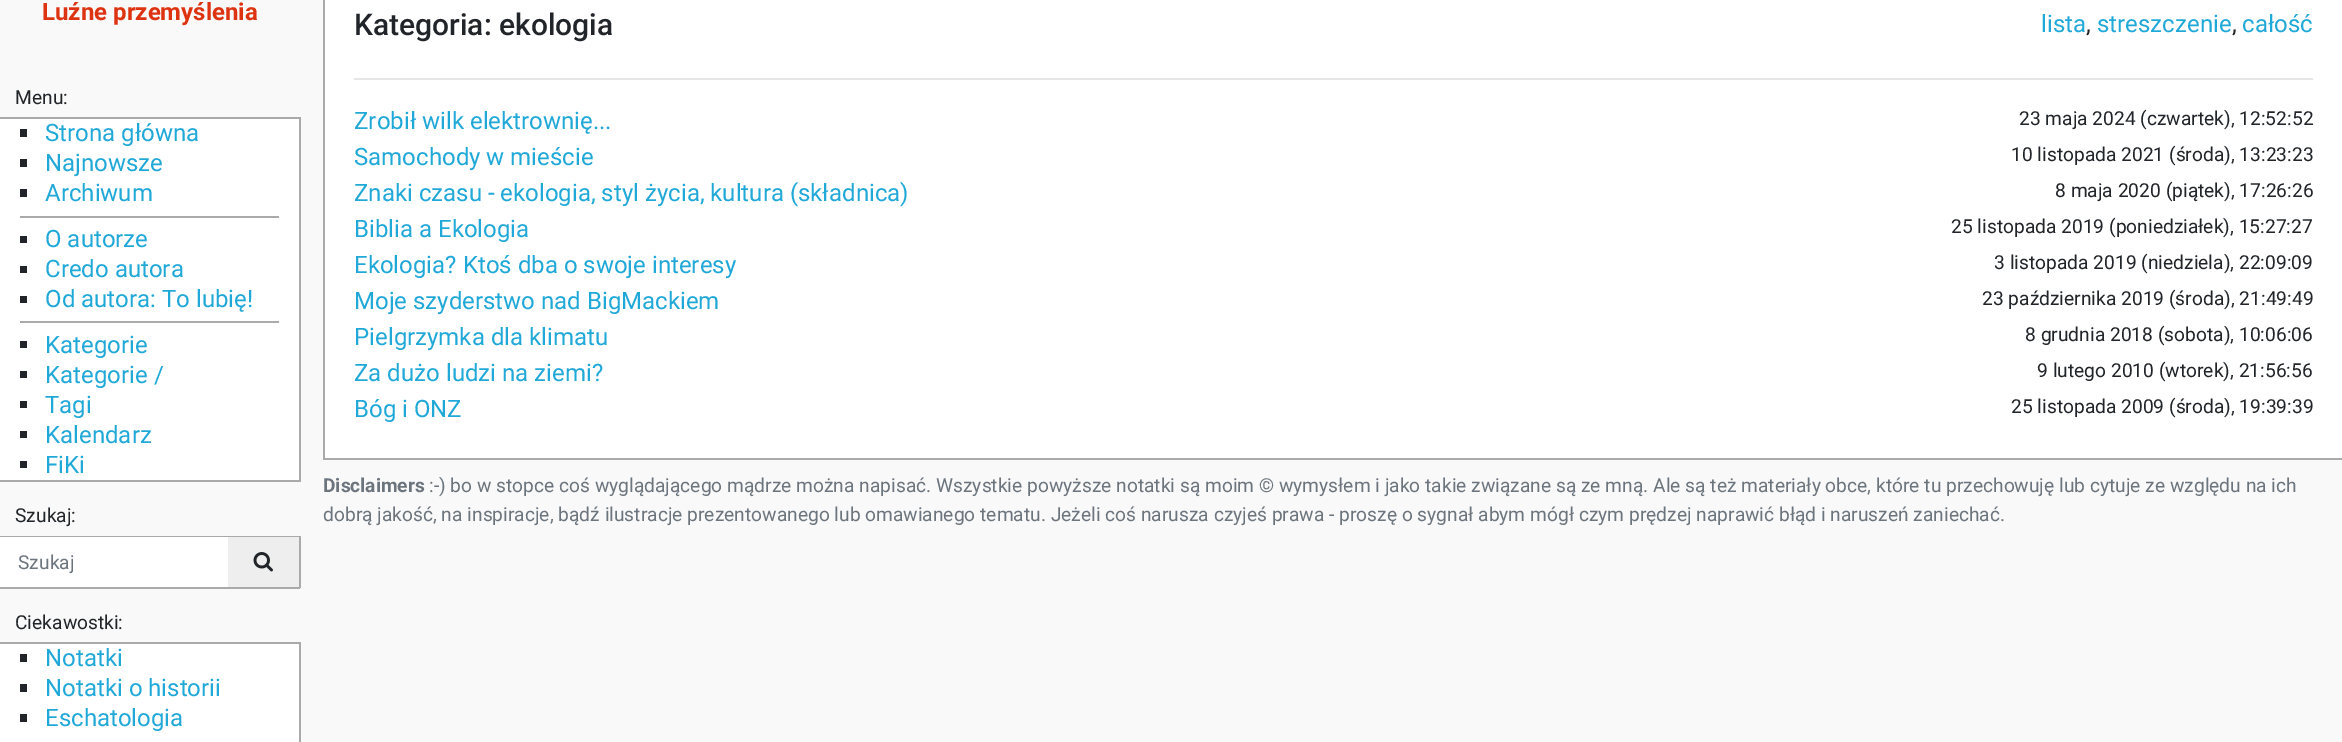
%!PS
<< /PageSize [2342 742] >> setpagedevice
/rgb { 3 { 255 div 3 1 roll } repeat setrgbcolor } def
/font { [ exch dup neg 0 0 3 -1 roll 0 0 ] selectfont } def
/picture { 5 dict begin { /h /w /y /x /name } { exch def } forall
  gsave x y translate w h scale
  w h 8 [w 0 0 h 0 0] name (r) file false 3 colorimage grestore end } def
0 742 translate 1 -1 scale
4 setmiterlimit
249 249 249 rgb
0 0 2342 742 rectfill
[
  [0 119 299 361 255 255 255]
  [0 117 300 2 170 170 170]
  [299 117 2 365 170 170 170]
  [0 480 300 2 170 170 170]
  [20 129 7 8 33 37 41]
  [20 159 7 8 33 37 41]
  [20 189 7 8 33 37 41]
  [20 216 259 2 170 170 170]
  [20 236 7 7 33 37 41]
  [20 266 7 7 33 37 41]
  [20 296 7 7 33 37 41]
  [20 321 259 2 170 170 170]
  [20 341 7 7 33 37 41]
  [20 371 7 7 33 37 41]
  [20 401 7 7 33 37 41]
  [20 431 7 7 33 37 41]
  [20 461 7 7 33 37 41]
  [0 536 300 1 170 170 170]
  [299 536 2 52 170 170 170]
  [0 587 300 2 170 170 170]
  [0 537 228 50 255 255 255]
  [228 537 71 50 238 238 238]
] { aload pop rgb rectfill } forall
(img/1.rgb) 253 552 20 20 picture
[
  [0 644 299 98 255 255 255]
  [0 642 300 2 170 170 170]
  [299 642 2 100 170 170 170]
  [20 654 7 8 33 37 41]
  [20 684 7 8 33 37 41]
  [20 714 7 8 33 37 41]
  [325 0 2017 458 255 255 255]
  [323 458 2019 2 170 170 170]
  [323 0 2 459 170 170 170]
  [354 78 1959 2 230 230 230]
] { aload pop rgb rectfill } forall
/Roboto-Bold 24 font
221 51 17 rgb
42 20 moveto (Luźne przemyślenia) show
/Roboto-Regular 19.2 font
33 37 41 rgb
15 104 moveto (Menu:) show
/Roboto-Regular 24 font
32 168 216 rgb
[
  [(Strona główna) 45 141]
  [(Najnowsze) 45 171]
  [(Archiwum) 45 201]
  [(O autorze) 45 247]
  [(Credo autora) 45 277]
  [(Od autora: To lubię!) 45 307]
  [(Kategorie) 45 353]
  [(Kategorie /) 45 383]
  [(Tagi) 45 413]
  [(Kalendarz) 45 443]
  [(FiKi) 45 473]
] { aload pop moveto show } forall
/Roboto-Regular 19.2 font
33 37 41 rgb
15 522 moveto (Szukaj:) show
108 117 125 rgb
18 569 moveto (Szukaj) show
33 37 41 rgb
15 629 moveto (Ciekawostki:) show
/Roboto-Regular 24 font
32 168 216 rgb
[
  [(Notatki) 45 666]
  [(Notatki o historii) 45 696]
  [(Eschatologia) 45 726]
] { aload pop moveto show } forall
/Roboto-Medium 30 font
33 37 41 rgb
354 35 moveto (Kategoria: ekologia) show
/Roboto-Regular 24 font
32 168 216 rgb
2041 32 moveto (lista) show
33 37 41 rgb
2086 32 moveto (,) show
32 168 216 rgb
2097 32 moveto (streszczenie) show
33 37 41 rgb
2232 32 moveto (,) show
32 168 216 rgb
2242 32 moveto (całość) show
354 129 moveto (Zrobił wilk elektrownię...) show
/Roboto-Regular 19.2 font
33 37 41 rgb
2019 125 moveto (23 maja 2024 \(czwartek\), 12:52:52) show
/Roboto-Regular 24 font
32 168 216 rgb
354 165 moveto (Samochody w mieście) show
/Roboto-Regular 19.2 font
33 37 41 rgb
2011 161 moveto (10 listopada 2021 \(środa\), 13:23:23) show
/Roboto-Regular 24 font
32 168 216 rgb
354 201 moveto (Znaki czasu - ekologia, styl życia, kultura \(składnica\)) show
/Roboto-Regular 19.2 font
33 37 41 rgb
2055 197 moveto (8 maja 2020 \(piątek\), 17:26:26) show
/Roboto-Regular 24 font
32 168 216 rgb
354 237 moveto (Biblia a Ekologia) show
/Roboto-Regular 19.2 font
33 37 41 rgb
1951 233 moveto (25 listopada 2019 \(poniedziałek\), 15:27:27) show
/Roboto-Regular 24 font
32 168 216 rgb
354 273 moveto (Ekologia? Ktoś dba o swoje interesy) show
/Roboto-Regular 19.2 font
33 37 41 rgb
1994 269 moveto (3 listopada 2019 \(niedziela\), 22:09:09) show
/Roboto-Regular 24 font
32 168 216 rgb
354 309 moveto (Moje szyderstwo nad BigMackiem) show
/Roboto-Regular 19.2 font
33 37 41 rgb
1982 305 moveto (23 października 2019 \(środa\), 21:49:49) show
/Roboto-Regular 24 font
32 168 216 rgb
354 345 moveto (Pielgrzymka dla klimatu) show
/Roboto-Regular 19.2 font
33 37 41 rgb
2025 341 moveto (8 grudnia 2018 \(sobota\), 10:06:06) show
/Roboto-Regular 24 font
32 168 216 rgb
354 381 moveto (Za dużo ludzi na ziemi?) show
/Roboto-Regular 19.2 font
33 37 41 rgb
2037 377 moveto (9 lutego 2010 \(wtorek\), 21:56:56) show
/Roboto-Regular 24 font
32 168 216 rgb
354 417 moveto (Bóg i ONZ) show
/Roboto-Regular 19.2 font
33 37 41 rgb
2011 413 moveto (25 listopada 2009 \(środa\), 19:39:39) show
/Roboto-Bold 19.2 font
108 117 125 rgb
323 492 moveto (Disclaimers) show
/Roboto-Regular 19.2 font
429 492 moveto (:-\) bo w stopce coś wyglądającego mądrze można napisać. Wszystkie powyższe notatki są moim © wymysłem i jako takie związane są ze mną. Ale są też materiały obce, które tu przechowuję lub cytuje ze względu na ich) show
323 521 moveto (dobrą jakość, na inspiracje, bądź ilustracje prezentowanego lub omawianego tematu. Jeżeli coś narusza czyjeś prawa - proszę o sygnał abym mógł czym prędzej naprawić błąd i naruszeń zaniechać.) show
showpage
